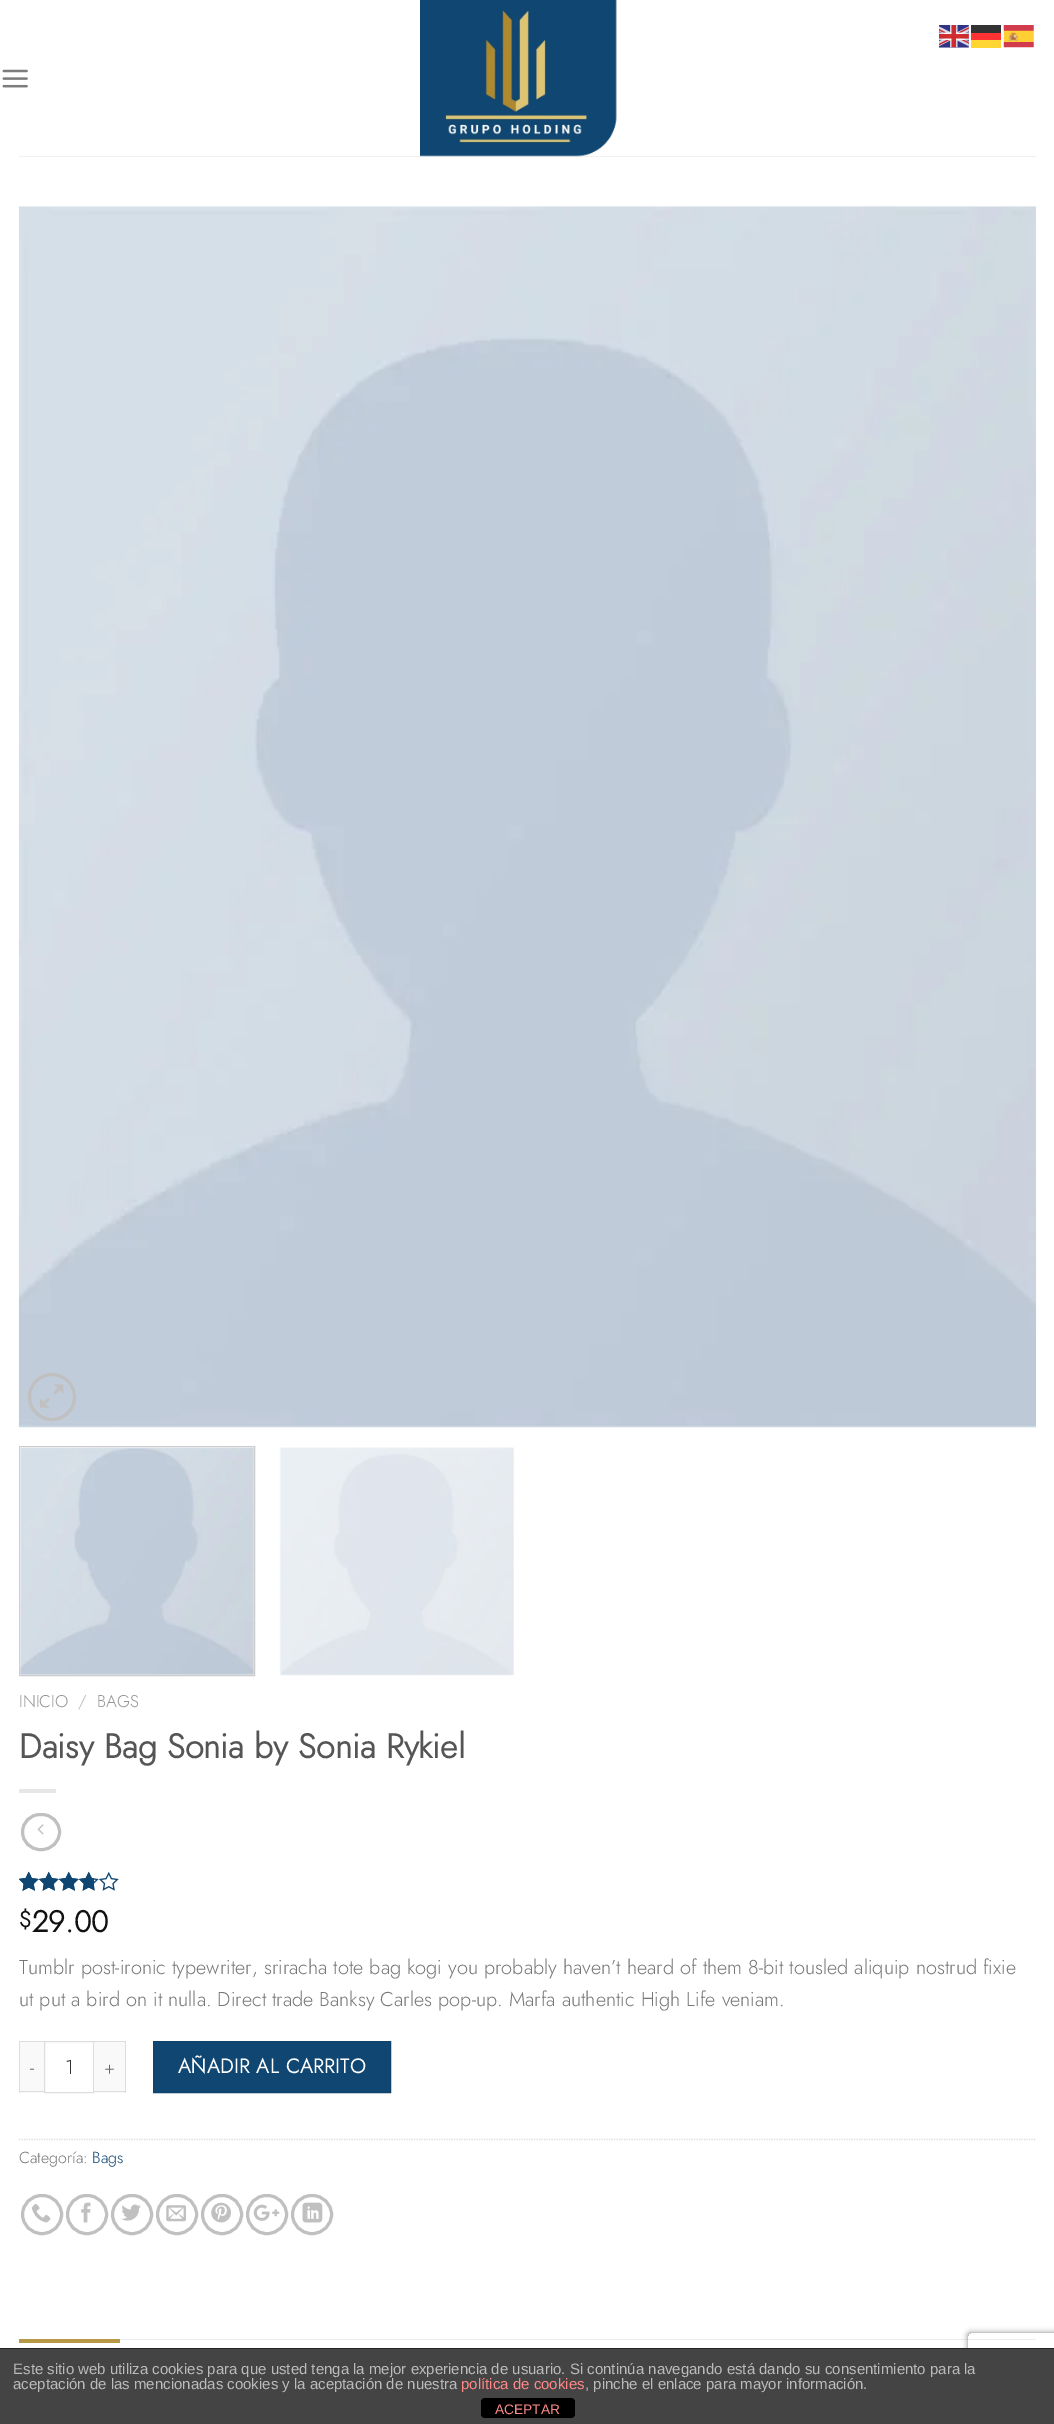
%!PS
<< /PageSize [1054 2424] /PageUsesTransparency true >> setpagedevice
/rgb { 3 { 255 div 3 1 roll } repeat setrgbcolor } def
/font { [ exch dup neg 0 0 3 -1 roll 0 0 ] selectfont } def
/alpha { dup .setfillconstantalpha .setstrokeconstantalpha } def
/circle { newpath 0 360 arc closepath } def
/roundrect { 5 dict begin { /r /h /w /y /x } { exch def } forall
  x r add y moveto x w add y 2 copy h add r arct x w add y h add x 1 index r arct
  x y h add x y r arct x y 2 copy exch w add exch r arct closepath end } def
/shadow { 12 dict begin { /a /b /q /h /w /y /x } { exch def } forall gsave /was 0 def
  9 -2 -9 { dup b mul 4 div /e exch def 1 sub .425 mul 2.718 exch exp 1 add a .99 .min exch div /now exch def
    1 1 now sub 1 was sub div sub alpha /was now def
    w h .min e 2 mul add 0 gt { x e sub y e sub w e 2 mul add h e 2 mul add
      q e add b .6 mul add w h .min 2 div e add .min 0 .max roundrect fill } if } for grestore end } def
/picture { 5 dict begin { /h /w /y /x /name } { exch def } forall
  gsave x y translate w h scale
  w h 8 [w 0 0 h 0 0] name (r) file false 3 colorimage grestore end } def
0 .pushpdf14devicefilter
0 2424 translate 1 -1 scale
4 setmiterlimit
255 255 255 rgb
0 0 1054 2424 rectfill
(img/1.rgb) 939 25 30 23 picture
51 51 51 rgb
971 25 30 8 rectfill
(img/2.rgb) 1003 25 31 23 picture
255 51 51 rgb
971 33 30 7 rectfill
255 214 51 rgb
971 40 30 8 rectfill
(img/3.rgb) 2 69 26 19 picture
(img/4.rgb) 420 0 197 157 picture
0.1 alpha
119 119 119 rgb
19 156 1017 1 rectfill
1 alpha
(img/5.rgb) 18 206 1019 1222 picture
192 192 192 rgb
3 setlinewidth
52 1397 22.5 circle stroke
(img/6.rgb) 40 1384 24 24 picture
204 204 204 rgb
1 setlinewidth
19.5 1446.5 235 229 rectstroke
(img/7.rgb) 19 1447 235 228 picture
(img/8.rgb) 279 1447 235 229 picture
230 230 230 rgb
19 1789 37 4 rectfill
192 192 192 rgb
3 setlinewidth
22.5 1814.5 37 35 17.5 roundrect stroke
(img/9.rgb) 37 1824 7 11 picture
(img/10.rgb) 19 1871 100 20 picture
(img/11.rgb) 19 1871 75 20 picture
(img/12.rgb) 19 1871 12 20 picture
[
  [20 2042 24 51 249 249 249]
  [19 2041 25 1 221 221 221]
  [19 2091 25 1 221 221 221]
  [19 2041 1 52 221 221 221]
] { aload pop rgb rectfill } forall
1 setlinewidth
44.5 2041.5 49 51 rectstroke
[
  [94 2042 31 51 249 249 249]
  [94 2041 32 1 221 221 221]
  [125 2041 1 52 221 221 221]
  [94 2091 32 1 221 221 221]
] { aload pop rgb rectfill } forall
16 70 114 rgb
153.5 2041.5 moveto 390.5 2041.5 lineto 390.5 2092.5 lineto 153.5 2092.5 lineto closepath gsave fill grestore
15 67 108 rgb
stroke
221 221 221 rgb
1.2 setlinewidth
[1.25 1.25] 0 setdash
19 2139.5 moveto 1036 2139.5 lineto stroke
192 192 192 rgb
3 setlinewidth
[] 0 setdash
22.5 2195.5 39 38 19 roundrect stroke
(img/13.rgb) 32 2204 19 19 picture
67.5 2195.5 39 38 19 roundrect stroke
(img/14.rgb) 81 2202 10 21 picture
112.5 2195.5 39 38 19 roundrect stroke
(img/15.rgb) 121 2204 20 17 picture
157.5 2195.5 39 38 19 roundrect stroke
(img/16.rgb) 166 2205 20 17 picture
202.5 2195.5 39 38 19 roundrect stroke
(img/17.rgb) 211 2202 20 21 picture
247.5 2195.5 39 38 19 roundrect stroke
(img/18.rgb) 253 2204 27 17 picture
292.5 2195.5 39 38 19 roundrect stroke
(img/19.rgb) 302 2202 21 21 picture
236 236 236 rgb
120 2339 916 1 rectfill
183 152 69 rgb
19 2339 101 4 rectfill
gsave
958 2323 moveto 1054 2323 lineto 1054 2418 lineto 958 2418 lineto closepath 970.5 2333 moveto 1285.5 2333 lineto 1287 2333 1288 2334 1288 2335.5 curveto 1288 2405.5 lineto 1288 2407 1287 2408 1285.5 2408 curveto 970.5 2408 lineto 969 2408 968 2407 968 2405.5 curveto 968 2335.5 lineto 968 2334 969 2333 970.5 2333 curveto closepath eoclip newpath
128 128 128 rgb
968 2333 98 75 2.5 3 1 shadow
grestore
68 68 68 rgb
0 2349 1054 75 rectfill
34 34 34 rgb
0 2348 1054 1 rectfill
0 0 0 rgb
481 2398 94 20 4 roundrect fill
/Jost-Light 17 font
148 148 148 rgb
19 1707 moveto (INICIO) show
178 178 178 rgb
78 1707 moveto (/) show
148 148 148 rgb
97 1707 moveto (BAGS) show
/Jost-Bold 34 font
85 85 85 rgb
19 1758 moveto (Daisy Bag Sonia by Sonia Rykiel) show
/Jost-Bold 22 font
17 17 17 rgb
19 1927 moveto ($) show
/Jost-Bold 30 font
32 1932 moveto (29.00) show
/Jost-Light 20 font
119 119 119 rgb
19 1974 moveto (Tumblr post-ironic typewriter, sriracha tote bag kogi you probably haven’t heard of them 8-bit tousled aliquip nostrud fixie) show
19 2006 moveto (ut put a bird on it nulla. Direct trade Banksy Carles pop-up. Marfa authentic High Life veniam.) show
/Jost-Light 19 font
102 102 102 rgb
30 2074 moveto 1 0 (-) ashow
/Jost-Light 20 font
51 51 51 rgb
65 2074 moveto (1) show
/Jost-Light 19 font
102 102 102 rgb
104 2074 moveto 1 0 (+) ashow
/Jost-Bold 20 font
255 255 255 rgb
178 2073 moveto 0.6 0 (AÑADIR AL CARRITO) ashow
/Jost-Light 16 font
119 119 119 rgb
19 2163 moveto (Categoría:) show
16 70 114 rgb
92 2163 moveto (Bags) show
/LiberationSans-Regular 15 font
187 187 187 rgb
13 2374 moveto (Este sitio web utiliza cookies para que usted tenga la mejor experiencia de usuario. Si continúa navegando está dando su consentimiento para la) show
13 2389 moveto (aceptación de las mencionadas cookies y la aceptación de nuestra) show
255 136 136 rgb
461 2389 moveto (política de cookies) show
187 187 187 rgb
585 2389 moveto (, pinche el enlace para mayor información.) show
/LiberationSans-Regular 13.75 font
255 136 136 rgb
495 2414 moveto (ACEPTAR) show
.poppdf14devicefilter showpage
